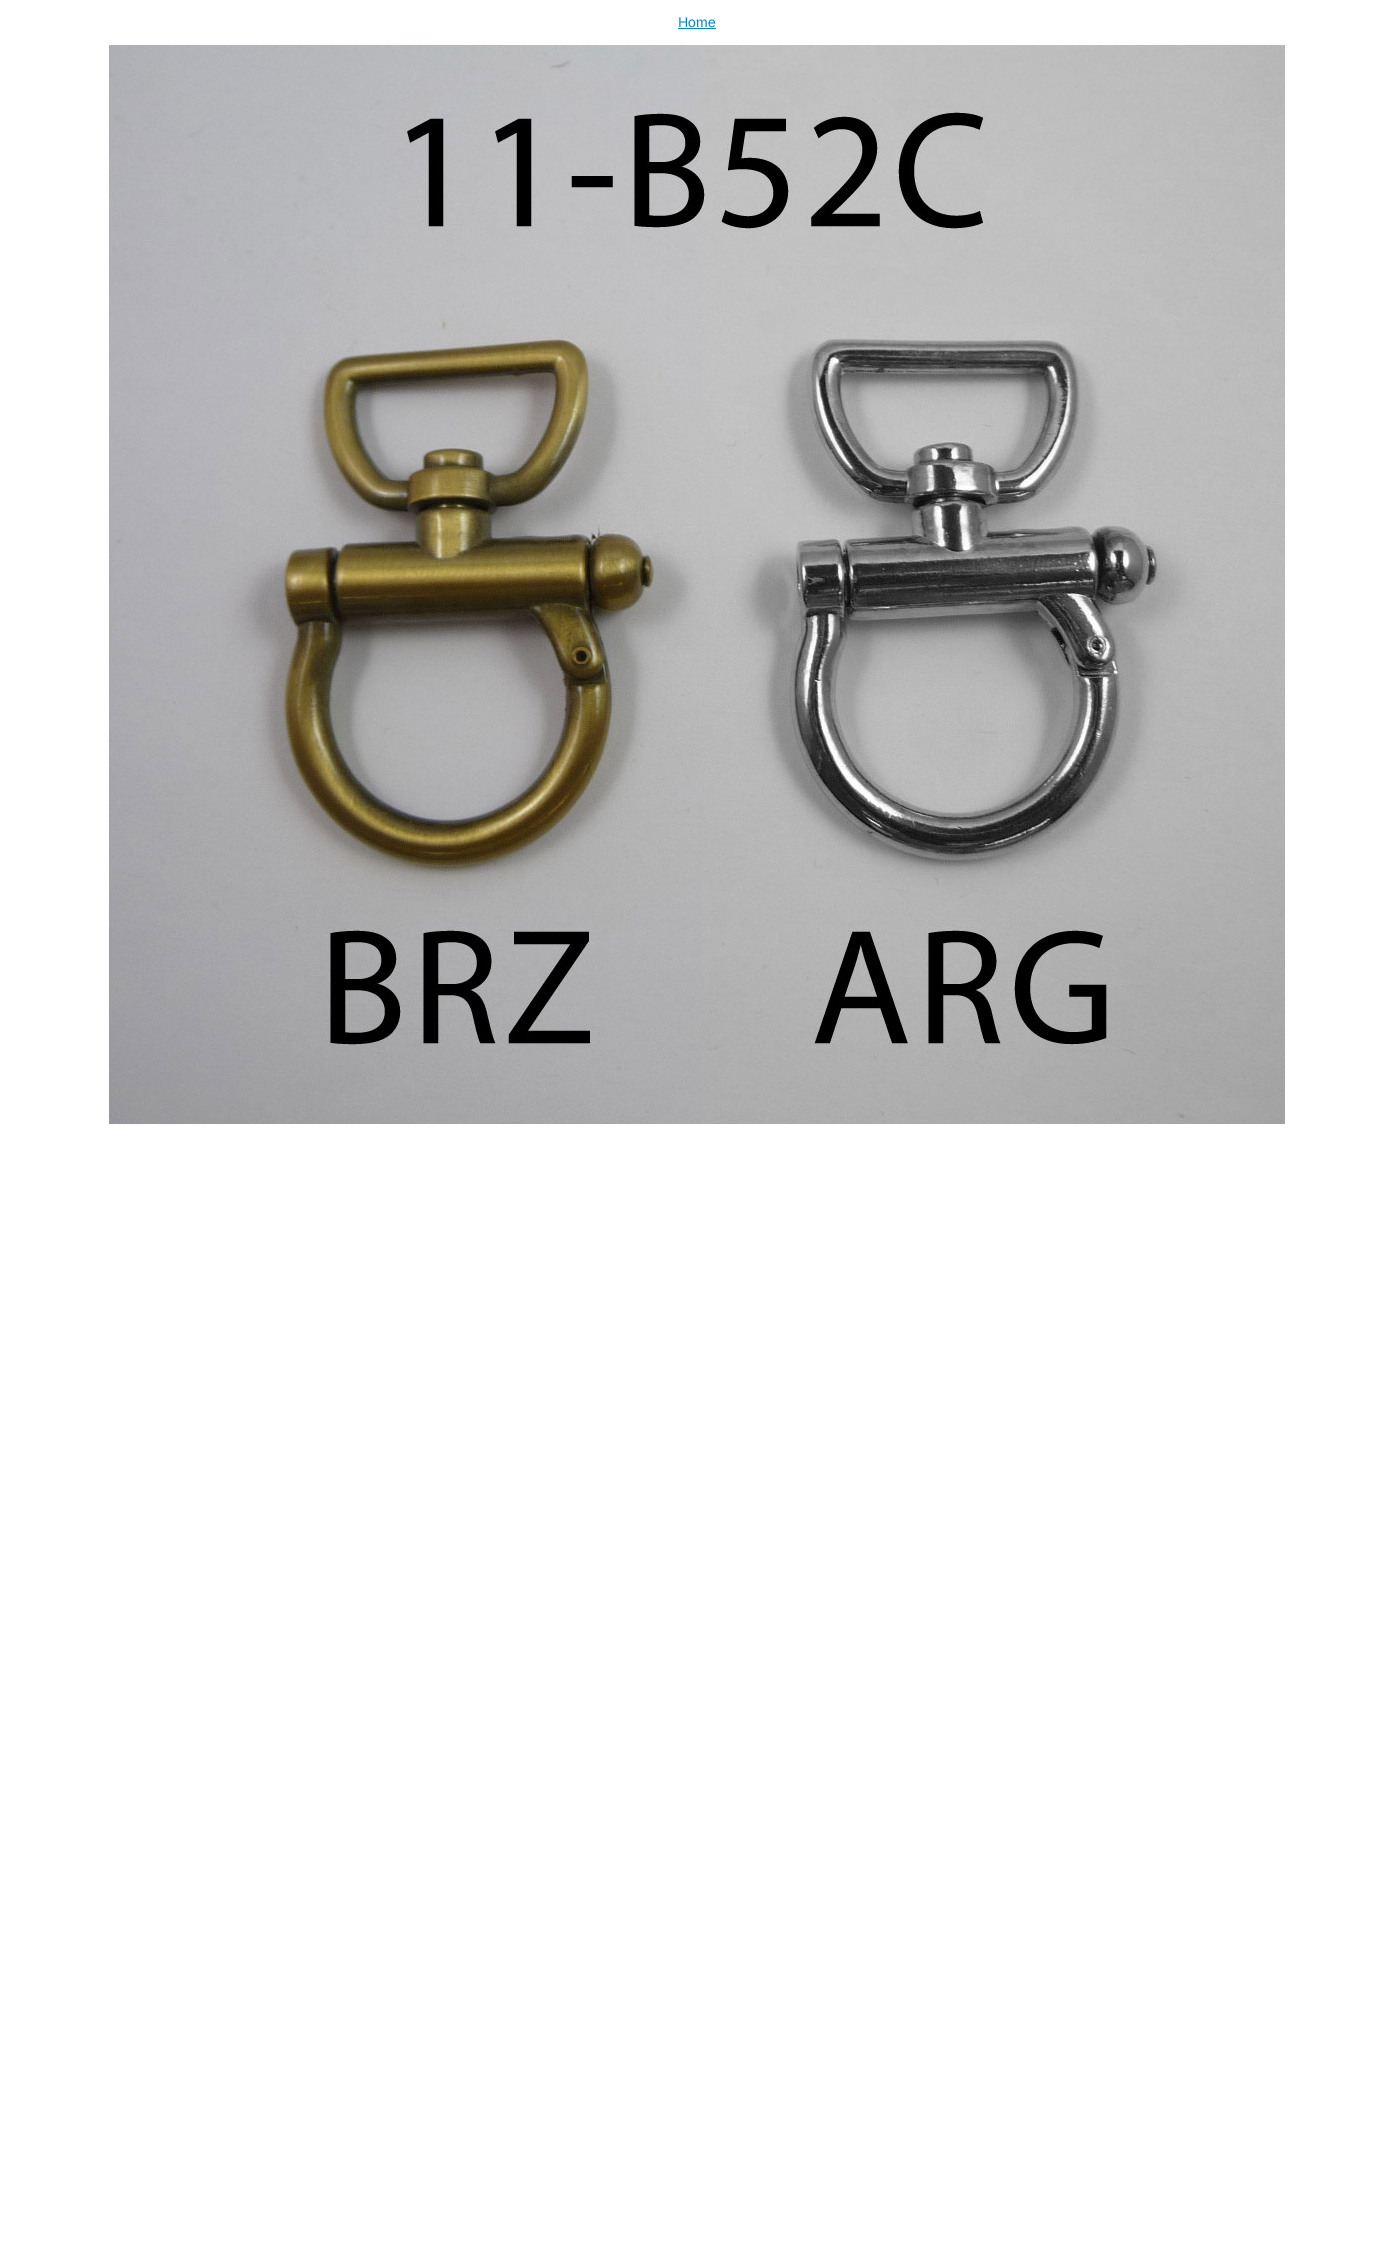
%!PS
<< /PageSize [1394 2267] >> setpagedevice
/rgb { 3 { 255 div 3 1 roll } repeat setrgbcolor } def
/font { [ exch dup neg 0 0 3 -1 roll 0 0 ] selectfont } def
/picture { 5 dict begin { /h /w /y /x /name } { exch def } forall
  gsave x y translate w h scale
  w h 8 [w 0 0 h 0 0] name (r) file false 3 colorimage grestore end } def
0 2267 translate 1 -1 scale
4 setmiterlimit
255 255 255 rgb
0 0 1394 2267 rectfill
0 136 204 rgb
678 28 38 1 rectfill
(img/1.rgb) 109 45 1176 1079 picture
/LiberationSans-Regular 14 font
678 27 moveto (Home) show
showpage
